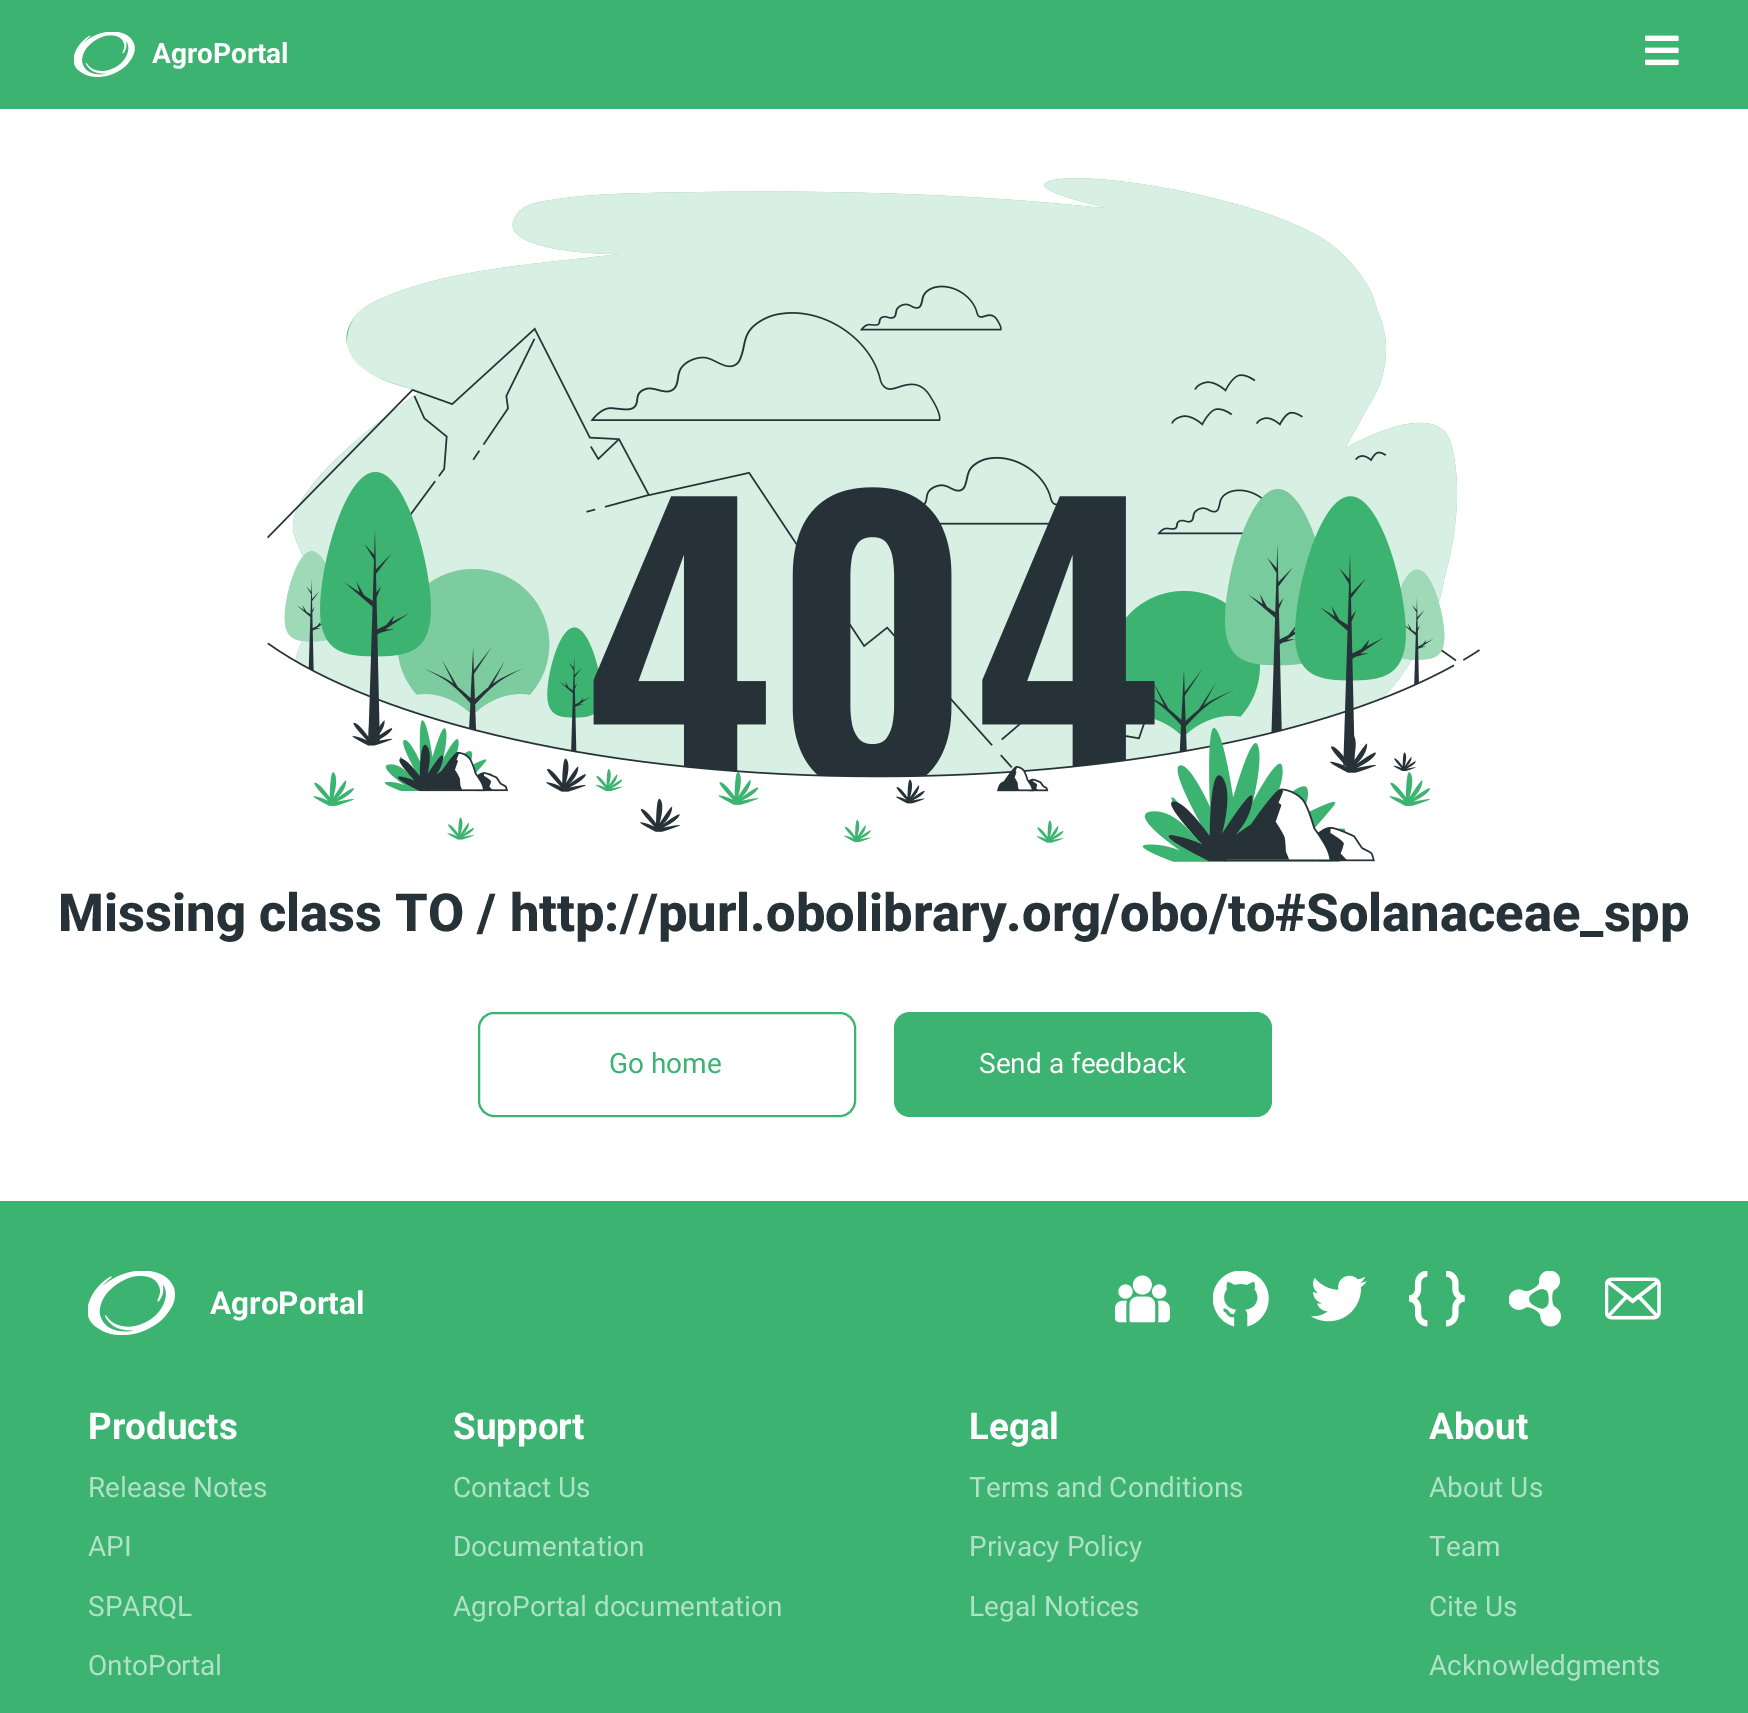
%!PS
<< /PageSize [1748 1713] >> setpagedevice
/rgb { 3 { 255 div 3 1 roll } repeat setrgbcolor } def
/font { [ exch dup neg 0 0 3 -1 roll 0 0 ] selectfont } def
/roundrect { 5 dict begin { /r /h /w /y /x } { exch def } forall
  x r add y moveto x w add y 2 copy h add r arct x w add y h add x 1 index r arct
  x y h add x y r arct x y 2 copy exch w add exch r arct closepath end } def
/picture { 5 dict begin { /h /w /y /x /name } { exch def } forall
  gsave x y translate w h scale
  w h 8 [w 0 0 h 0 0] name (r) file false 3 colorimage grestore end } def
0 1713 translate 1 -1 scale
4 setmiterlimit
255 255 255 rgb
0 0 1748 1713 rectfill
60 179 113 rgb
0 0 1748 109 rectfill
(img/1.rgb) 74 32 61 45 picture
(img/2.rgb) 1645 35 34 31 picture
(img/3.rgb) 267 178 1213 684 picture
2 setlinewidth
479 1013 376 103 15 roundrect stroke
894 1012 378 105 16 roundrect fill
0 1201 1748 512 rectfill
(img/4.rgb) 88 1271 87 64 picture
(img/5.rgb) 1115 1275 55 48 picture
(img/6.rgb) 1213 1271 56 56 picture
(img/7.rgb) 1311 1275 56 47 picture
(img/8.rgb) 1409 1271 56 56 picture
(img/9.rgb) 1509 1271 52 56 picture
(img/10.rgb) 1605 1277 56 43 picture
/Roboto-Bold 28 font
255 255 255 rgb
152 63 moveto (AgroPortal) show
/Roboto-ExtraBold 52.5 font
38 50 56 rgb
58 931 moveto (Missing class TO / http://purl.obolibrary.org/obo/to#Solanaceae_spp) show
/Roboto-Regular 28 font
60 179 113 rgb
609 1073 moveto (Go home) show
255 255 255 rgb
979 1073 moveto (Send a feedback) show
/Roboto-Bold 31.5 font
210 1314 moveto (AgroPortal) show
/Roboto-Bold 36.75 font
88 1439 moveto (Products) show
/Roboto-Regular 28 font
177 225 198 rgb
[
  [(Release Notes) 88 1497]
  [(API) 88 1556]
  [(SPARQL) 88 1616]
  [(OntoPortal) 88 1675]
] { aload pop moveto show } forall
/Roboto-Bold 36.75 font
255 255 255 rgb
453 1439 moveto (Support) show
/Roboto-Regular 28 font
177 225 198 rgb
[
  [(Contact Us) 453 1497]
  [(Documentation) 453 1556]
  [(AgroPortal documentation) 453 1616]
] { aload pop moveto show } forall
/Roboto-Bold 36.75 font
255 255 255 rgb
969 1439 moveto (Legal) show
/Roboto-Regular 28 font
177 225 198 rgb
[
  [(Terms and Conditions) 969 1497]
  [(Privacy Policy) 969 1556]
  [(Legal Notices) 969 1616]
] { aload pop moveto show } forall
/Roboto-Bold 36.75 font
255 255 255 rgb
1429 1439 moveto (About) show
/Roboto-Regular 28 font
177 225 198 rgb
[
  [(About Us) 1429 1497]
  [(Team) 1429 1556]
  [(Cite Us) 1429 1616]
  [(Acknowledgments) 1429 1675]
] { aload pop moveto show } forall
showpage
